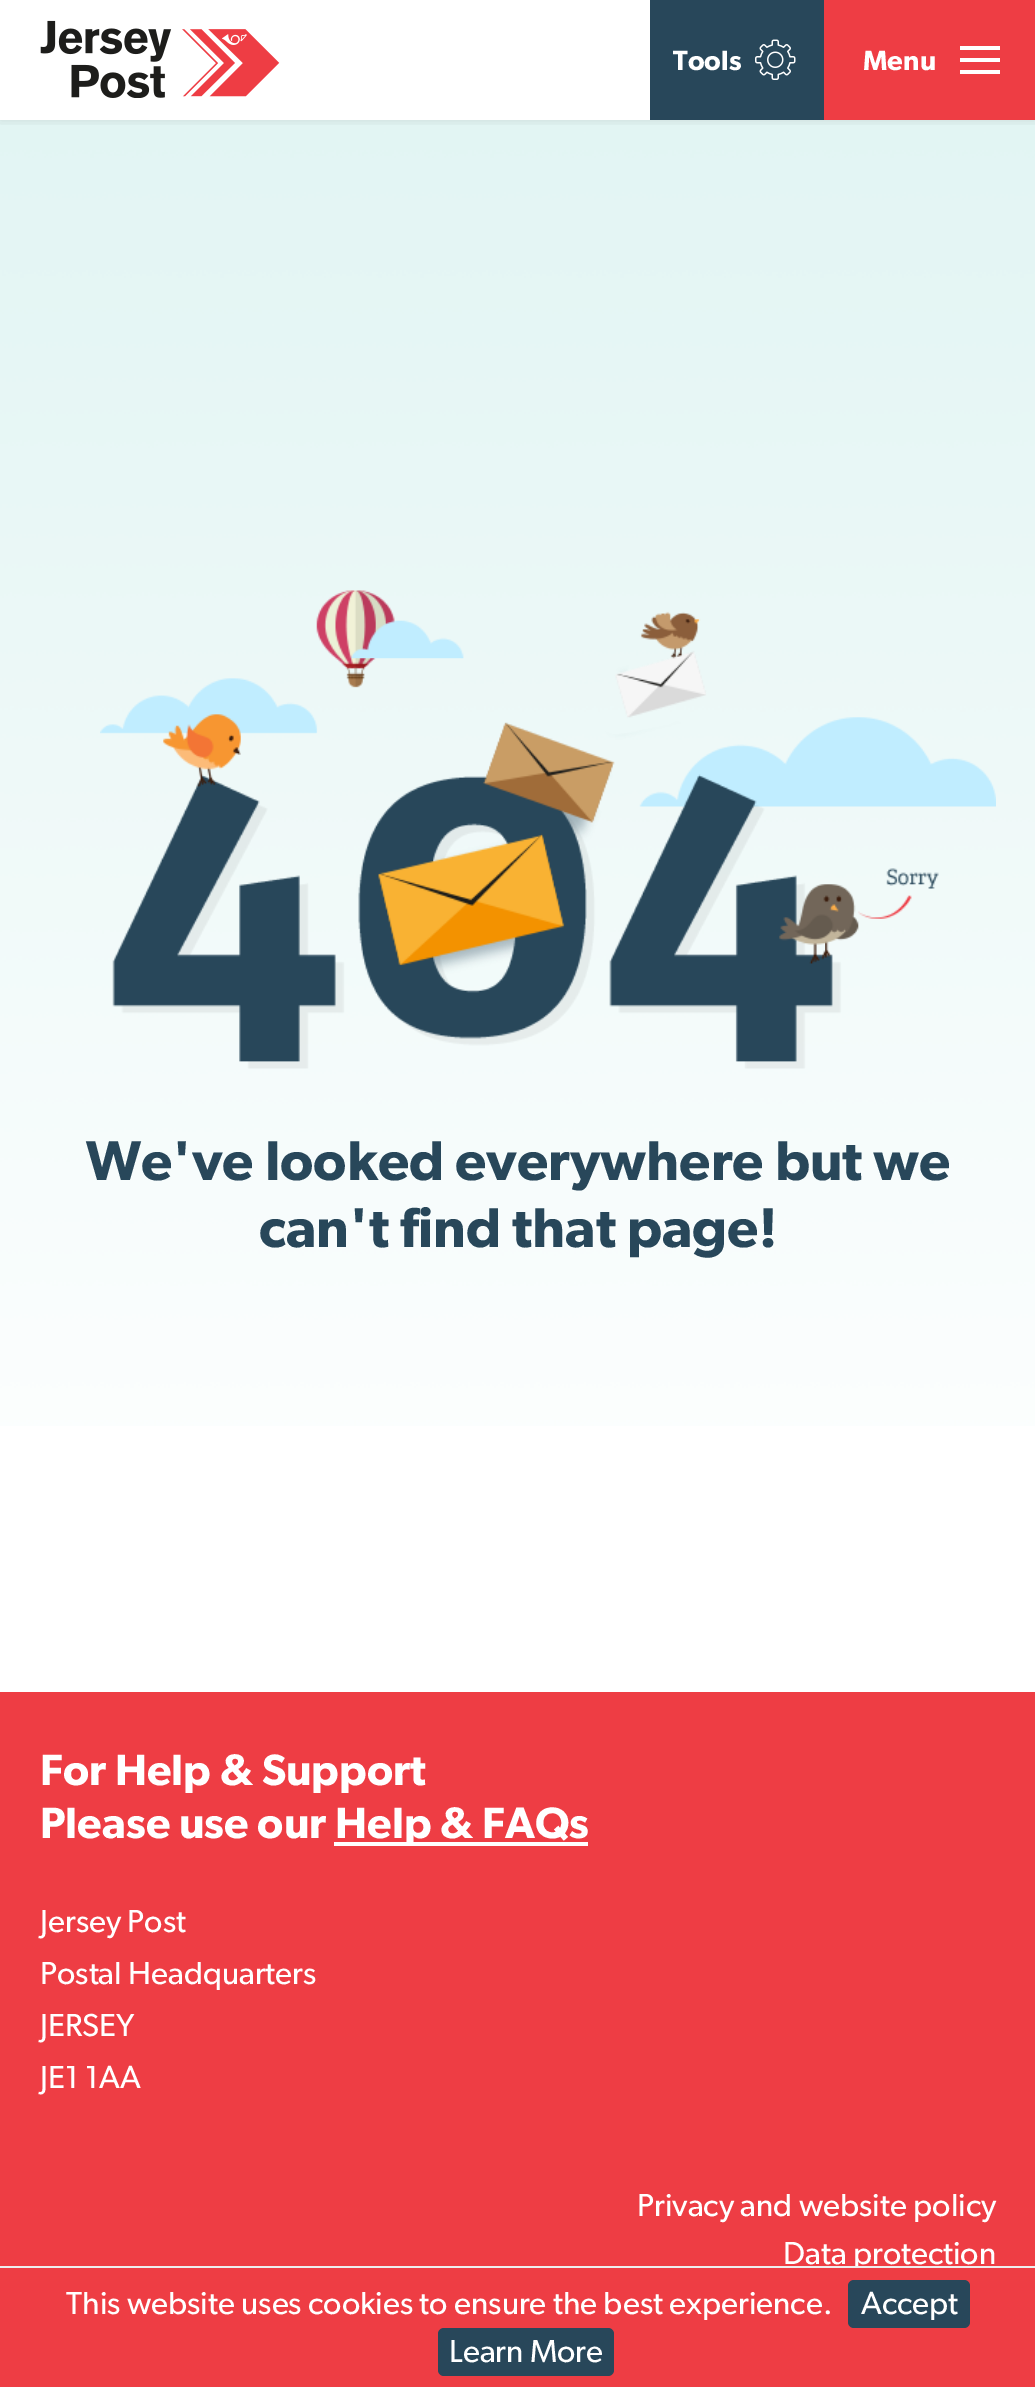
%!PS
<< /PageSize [1035 2387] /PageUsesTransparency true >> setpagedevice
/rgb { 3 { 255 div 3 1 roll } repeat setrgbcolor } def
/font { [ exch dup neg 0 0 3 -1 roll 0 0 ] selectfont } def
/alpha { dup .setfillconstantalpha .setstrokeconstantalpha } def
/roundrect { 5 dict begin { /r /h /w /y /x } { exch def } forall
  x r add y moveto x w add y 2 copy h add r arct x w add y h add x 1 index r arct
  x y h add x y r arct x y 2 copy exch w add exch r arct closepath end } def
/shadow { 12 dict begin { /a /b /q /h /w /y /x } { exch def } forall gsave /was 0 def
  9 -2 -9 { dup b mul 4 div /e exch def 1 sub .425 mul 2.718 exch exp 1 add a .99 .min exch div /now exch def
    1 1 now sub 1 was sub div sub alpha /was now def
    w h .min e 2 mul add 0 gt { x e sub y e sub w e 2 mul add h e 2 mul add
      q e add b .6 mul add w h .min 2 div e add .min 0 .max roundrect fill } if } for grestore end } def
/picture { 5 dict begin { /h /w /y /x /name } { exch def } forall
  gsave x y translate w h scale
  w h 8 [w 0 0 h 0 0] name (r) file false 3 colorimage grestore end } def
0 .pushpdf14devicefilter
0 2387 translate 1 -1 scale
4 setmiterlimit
255 255 255 rgb
0 0 1035 2387 rectfill
(img/3.rgb) 0 120 1035 1306 picture
gsave
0 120 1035 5 rectclip
0 0 0 rgb
0 0 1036 120 0 6 0.1 shadow
grestore
(img/1.rgb) 40 20 240 78 picture
40 71 90 rgb
650 0 174 120 rectfill
(img/2.rgb) 755 39 41 41 picture
[
  [824 0 211 120 238 61 68]
  [960 46 40 4 255 255 255]
  [960 58 40 4 255 255 255]
  [960 70 40 4 255 255 255]
] { aload pop rgb rectfill } forall
(img/4.rgb) 100 590 896 479 picture
238 61 68 rgb
0 1692 1035 574 rectfill
255 255 255 rgb
334 1842 254 4 rectfill
/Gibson-SemiBold 28 font
673 70 moveto (Tools) show
863 70 moveto (Menu) show
/Gibson-SemiBold 56 font
40 71 90 rgb
86 1180 moveto (We've looked everywhere but we) show
259 1247 moveto (can't find that page!) show
/Gibson-SemiBold 44 font
255 255 255 rgb
[
  [(For Help & Support) 40 1785]
  [(Please use our) 40 1838]
  [(Help & FAQs) 335 1838]
] { aload pop moveto show } forall
/Gibson-Regular 32 font
[
  [(Jersey Post) 40 1932]
  [(Postal Headquarters) 40 1984]
  [(JERSEY) 40 2036]
  [(JE1 1AA) 40 2088]
  [(Privacy and website policy) 637 2216]
  [(Data protection) 783 2264]
] { aload pop moveto show } forall
238 61 68 rgb
0 2268 1035 119 rectfill
238 238 238 rgb
0 2266 1035 2 rectfill
255 255 255 rgb
66 2314 moveto (This website uses cookies to ensure the best experience.) show
40 71 90 rgb
848 2280 122 48 6 roundrect fill
255 255 255 rgb
861 2314 moveto (Accept) show
40 71 90 rgb
438 2328 176 48 6 roundrect fill
255 255 255 rgb
449 2362 moveto (Learn More) show
.poppdf14devicefilter showpage
